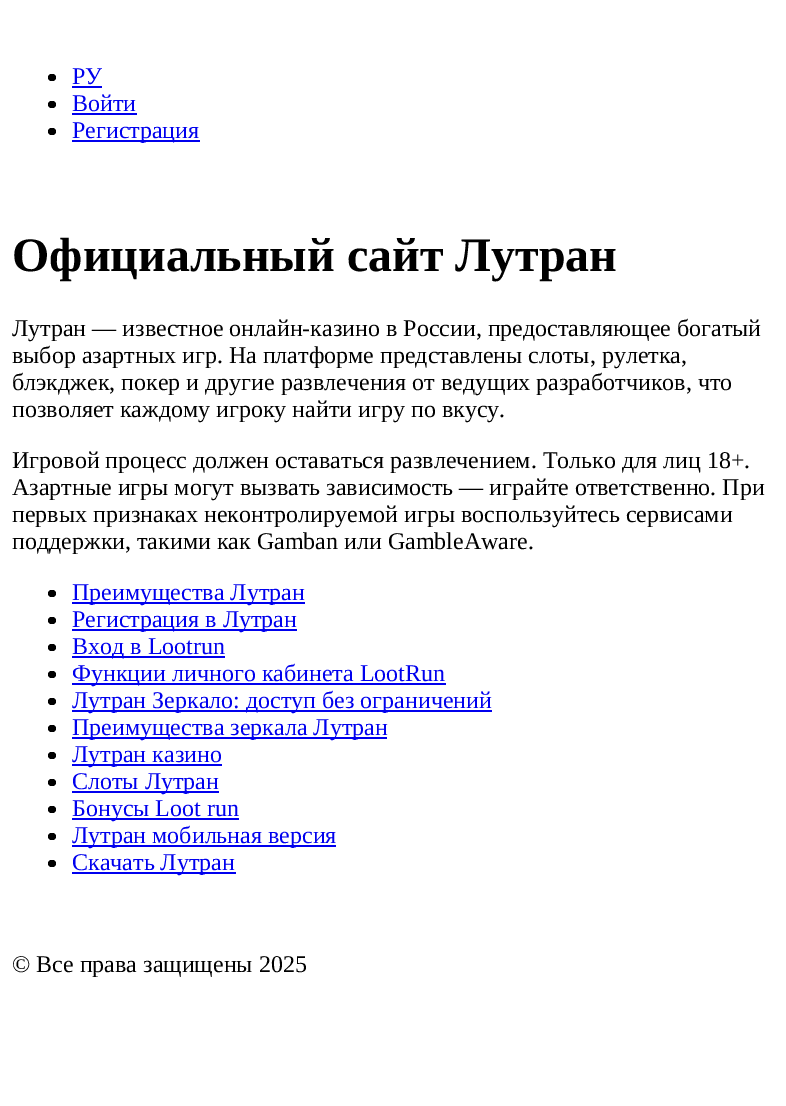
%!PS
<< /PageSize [786 1106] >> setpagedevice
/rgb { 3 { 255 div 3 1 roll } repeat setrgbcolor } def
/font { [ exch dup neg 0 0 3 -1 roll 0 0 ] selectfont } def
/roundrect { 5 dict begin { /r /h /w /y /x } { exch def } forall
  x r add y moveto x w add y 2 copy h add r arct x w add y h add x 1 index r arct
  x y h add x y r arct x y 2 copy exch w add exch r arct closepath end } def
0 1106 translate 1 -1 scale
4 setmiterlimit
255 255 255 rgb
0 0 786 1106 rectfill
0 0 0 rgb
48 74 8 7 3.5 roundrect fill
0 0 238 rgb
72 86 30 2 rectfill
0 0 0 rgb
48 101 8 7 3.5 roundrect fill
0 0 238 rgb
72 113 65 2 rectfill
0 0 0 rgb
48 128 8 7 3.5 roundrect fill
0 0 238 rgb
72 140 128 2 rectfill
0 0 0 rgb
48 590 8 7 3.5 roundrect fill
0 0 238 rgb
72 602 233 2 rectfill
0 0 0 rgb
48 617 8 7 3.5 roundrect fill
0 0 238 rgb
72 629 225 2 rectfill
0 0 0 rgb
48 644 8 7 3.5 roundrect fill
0 0 238 rgb
72 656 153 2 rectfill
0 0 0 rgb
48 671 8 7 3.5 roundrect fill
0 0 238 rgb
72 683 374 2 rectfill
0 0 0 rgb
48 698 8 7 3.5 roundrect fill
0 0 238 rgb
72 710 420 2 rectfill
0 0 0 rgb
48 725 8 7 3.5 roundrect fill
0 0 238 rgb
72 737 315 2 rectfill
0 0 0 rgb
48 752 8 7 3.5 roundrect fill
0 0 238 rgb
72 764 150 2 rectfill
0 0 0 rgb
48 779 8 7 3.5 roundrect fill
0 0 238 rgb
72 791 147 2 rectfill
0 0 0 rgb
48 806 8 7 3.5 roundrect fill
0 0 238 rgb
72 818 167 2 rectfill
0 0 0 rgb
48 833 8 7 3.5 roundrect fill
0 0 238 rgb
72 845 264 2 rectfill
0 0 0 rgb
48 860 8 7 3.5 roundrect fill
0 0 238 rgb
72 872 164 2 rectfill
/LiberationSerif-Regular 24 font
[
  [(РУ) 72 84]
  [(Войти) 72 111]
  [(Регистрация) 72 138]
] { aload pop moveto show } forall
/LiberationSerif-Bold 48 font
0 0 0 rgb
12 271 moveto (Официальный сайт Лутран) show
/LiberationSerif-Regular 24 font
[
  [(Лутран — известное онлайн-казино в России, предоставляющее богатый) 12 336]
  [(выбор азартных игр. На платформе представлены слоты, рулетка,) 12 363]
  [(блэкджек, покер и другие развлечения от ведущих разработчиков, что) 12 390]
  [(позволяет каждому игроку найти игру по вкусу.) 12 417]
  [(Игровой процесс должен оставаться развлечением. Только для лиц 18+.) 12 468]
  [(Азартные игры могут вызвать зависимость — играйте ответственно. При) 12 495]
  [(первых признаках неконтролируемой игры воспользуйтесь сервисами) 12 522]
  [(поддержки, такими как Gamban или GambleAware.) 12 549]
] { aload pop moveto show } forall
0 0 238 rgb
[
  [(Преимущества Лутран) 72 600]
  [(Регистрация в Лутран) 72 627]
  [(Вход в Lootrun) 72 654]
  [(Функции личного кабинета LootRun) 72 681]
  [(Лутран Зеркало: доступ без ограничений) 72 708]
  [(Преимущества зеркала Лутран) 72 735]
  [(Лутран казино) 72 762]
  [(Слоты Лутран) 72 789]
  [(Бонусы Loot run) 72 816]
  [(Лутран мобильная версия) 72 843]
  [(Скачать Лутран) 72 870]
] { aload pop moveto show } forall
0 0 0 rgb
12 972 moveto (© Все права защищены 2025) show
showpage
